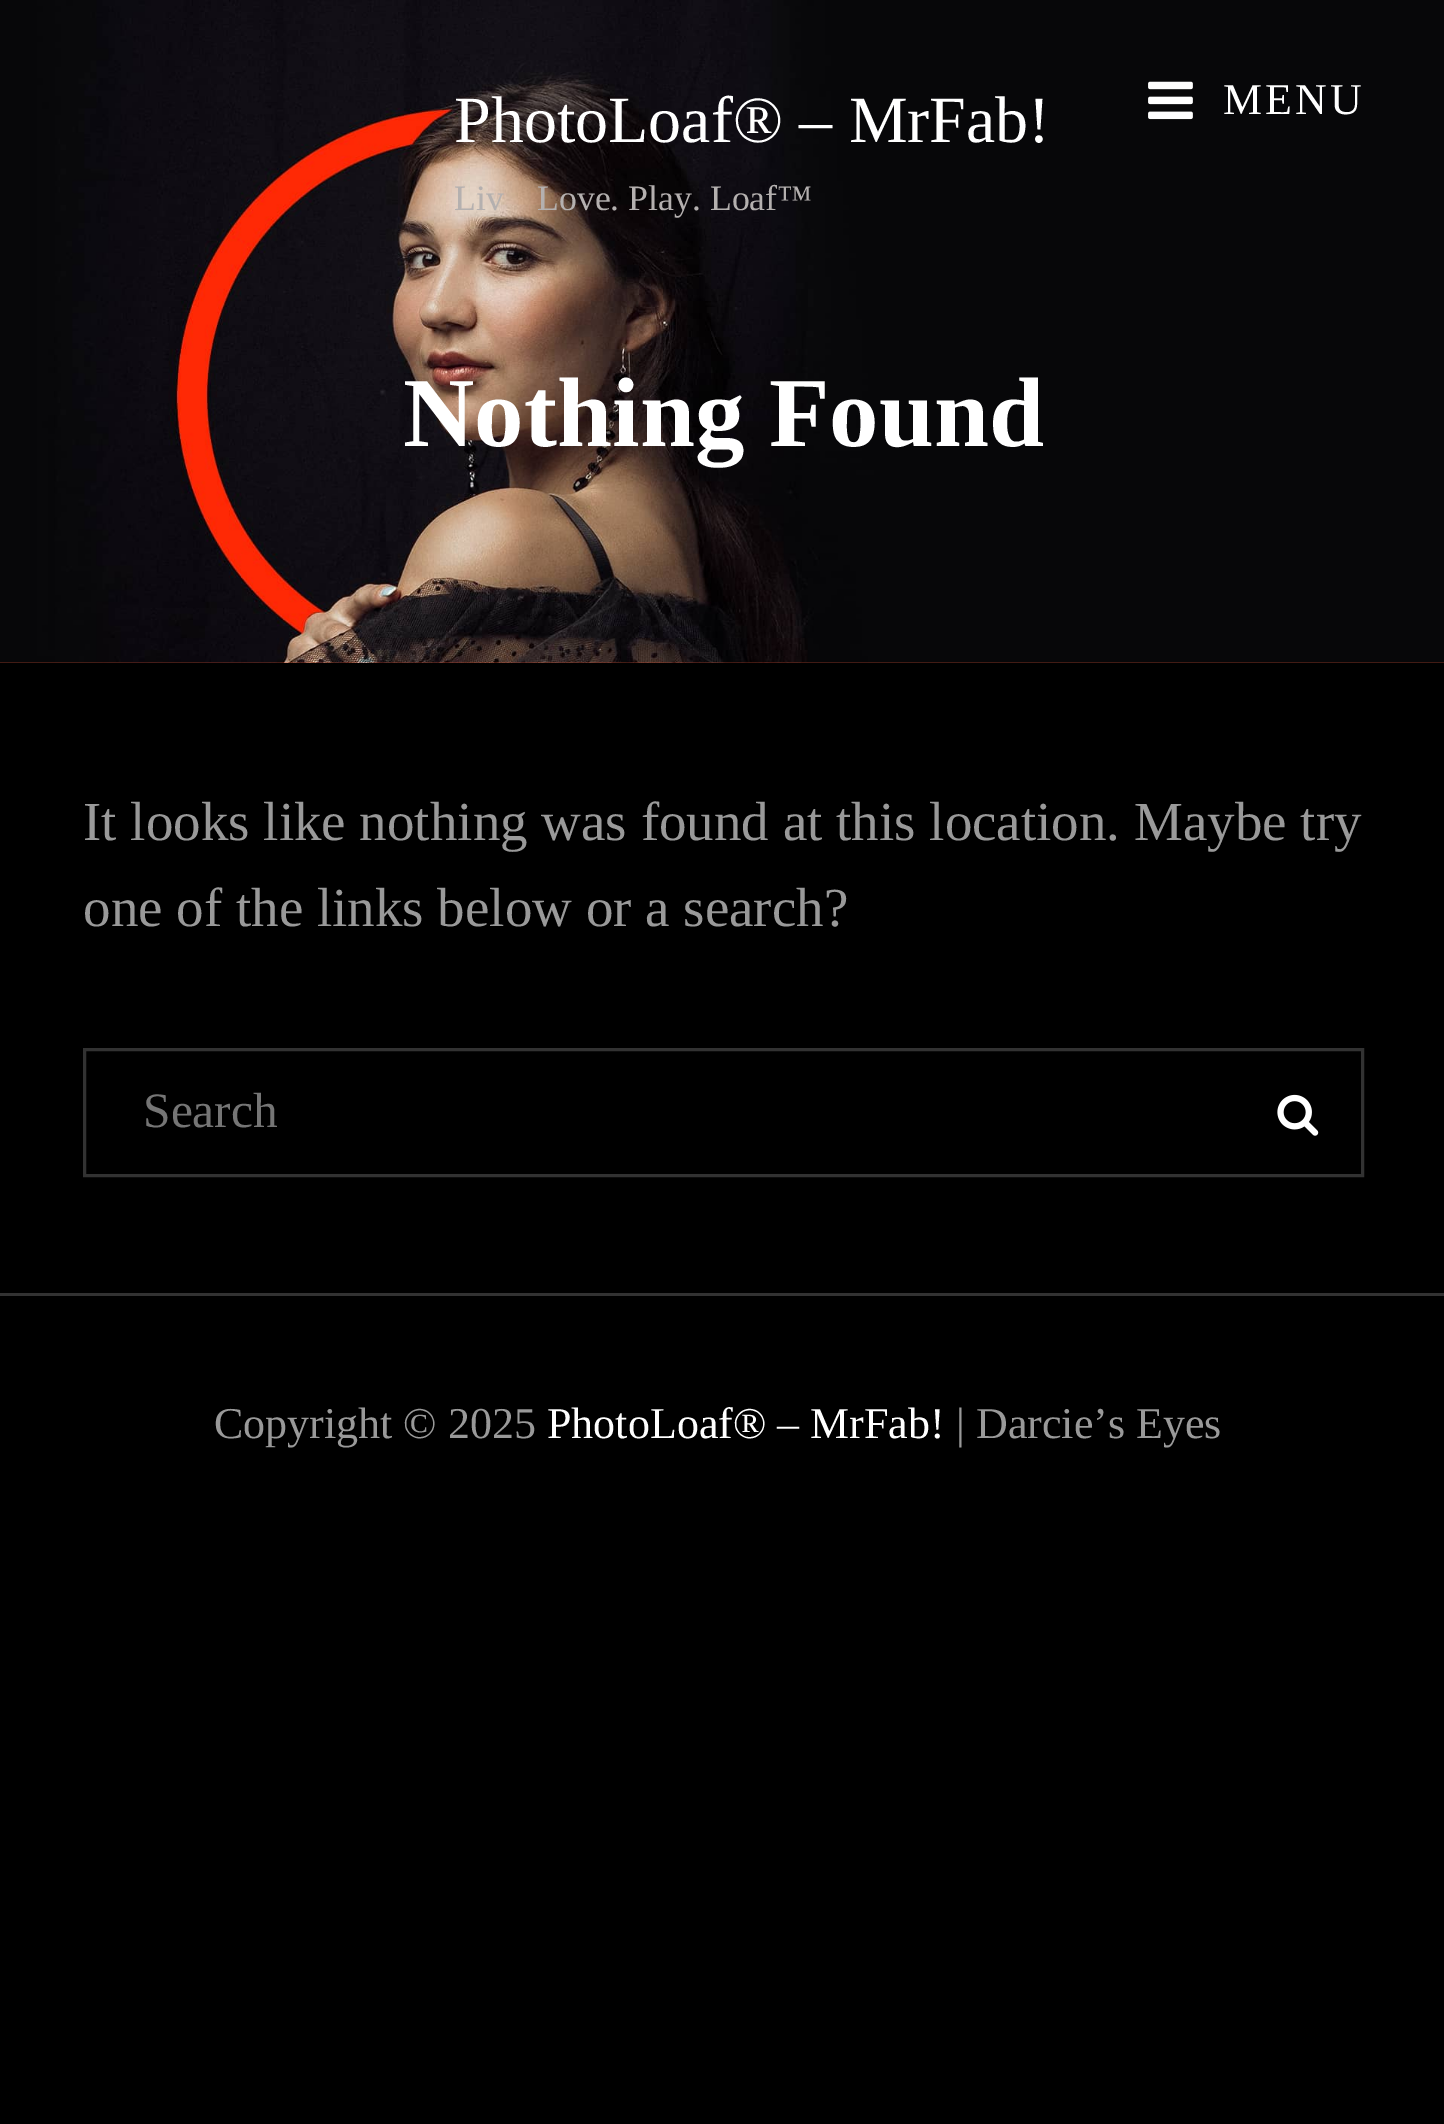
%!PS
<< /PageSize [1444 2124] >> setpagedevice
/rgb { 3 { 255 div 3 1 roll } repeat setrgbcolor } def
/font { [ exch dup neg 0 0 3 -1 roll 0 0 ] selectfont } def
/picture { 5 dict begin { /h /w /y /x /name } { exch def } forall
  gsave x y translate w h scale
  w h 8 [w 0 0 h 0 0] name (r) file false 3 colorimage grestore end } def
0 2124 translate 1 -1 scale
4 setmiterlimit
0 0 0 rgb
0 0 1444 2124 rectfill
(img/2.rgb) 0 0 1444 663 picture
(img/1.rgb) 1148 81 45 39 picture
50 50 50 rgb
3 setlinewidth
84.5 1049.5 1278 126 rectstroke
(img/3.rgb) 1277 1094 42 42 picture
0 1293 1444 3 rectfill
/LiberationSerif-Regular 66 font
255 255 255 rgb
454 142 moveto (PhotoLoaf® – MrFab!) show
/LiberationSerif-Regular 35.75 font
180 176 175 rgb
454 210 moveto (Liv) show
537 210 moveto (Love. Play. Loaf™) show
/LiberationSerif-Regular 44 font
255 255 255 rgb
1223 114 moveto 3 0 (MENU) ashow
/LiberationSerif-Bold 99 font
403 446 moveto (Nothing Found) show
/LiberationSerif-Regular 55 font
153 153 153 rgb
83 840 moveto (It looks like nothing was found at this location. Maybe try) show
83 926 moveto (one of the links below or a search?) show
/LiberationSerif-Regular 49.5 font
117 117 117 rgb
143 1127 moveto (Search) show
/LiberationSerif-Regular 44 font
153 153 153 rgb
214 1438 moveto (Copyright © 2025) show
255 255 255 rgb
547 1438 moveto (PhotoLoaf® – MrFab!) show
153 153 153 rgb
956 1438 moveto (| Darcie’s Eyes) show
showpage
